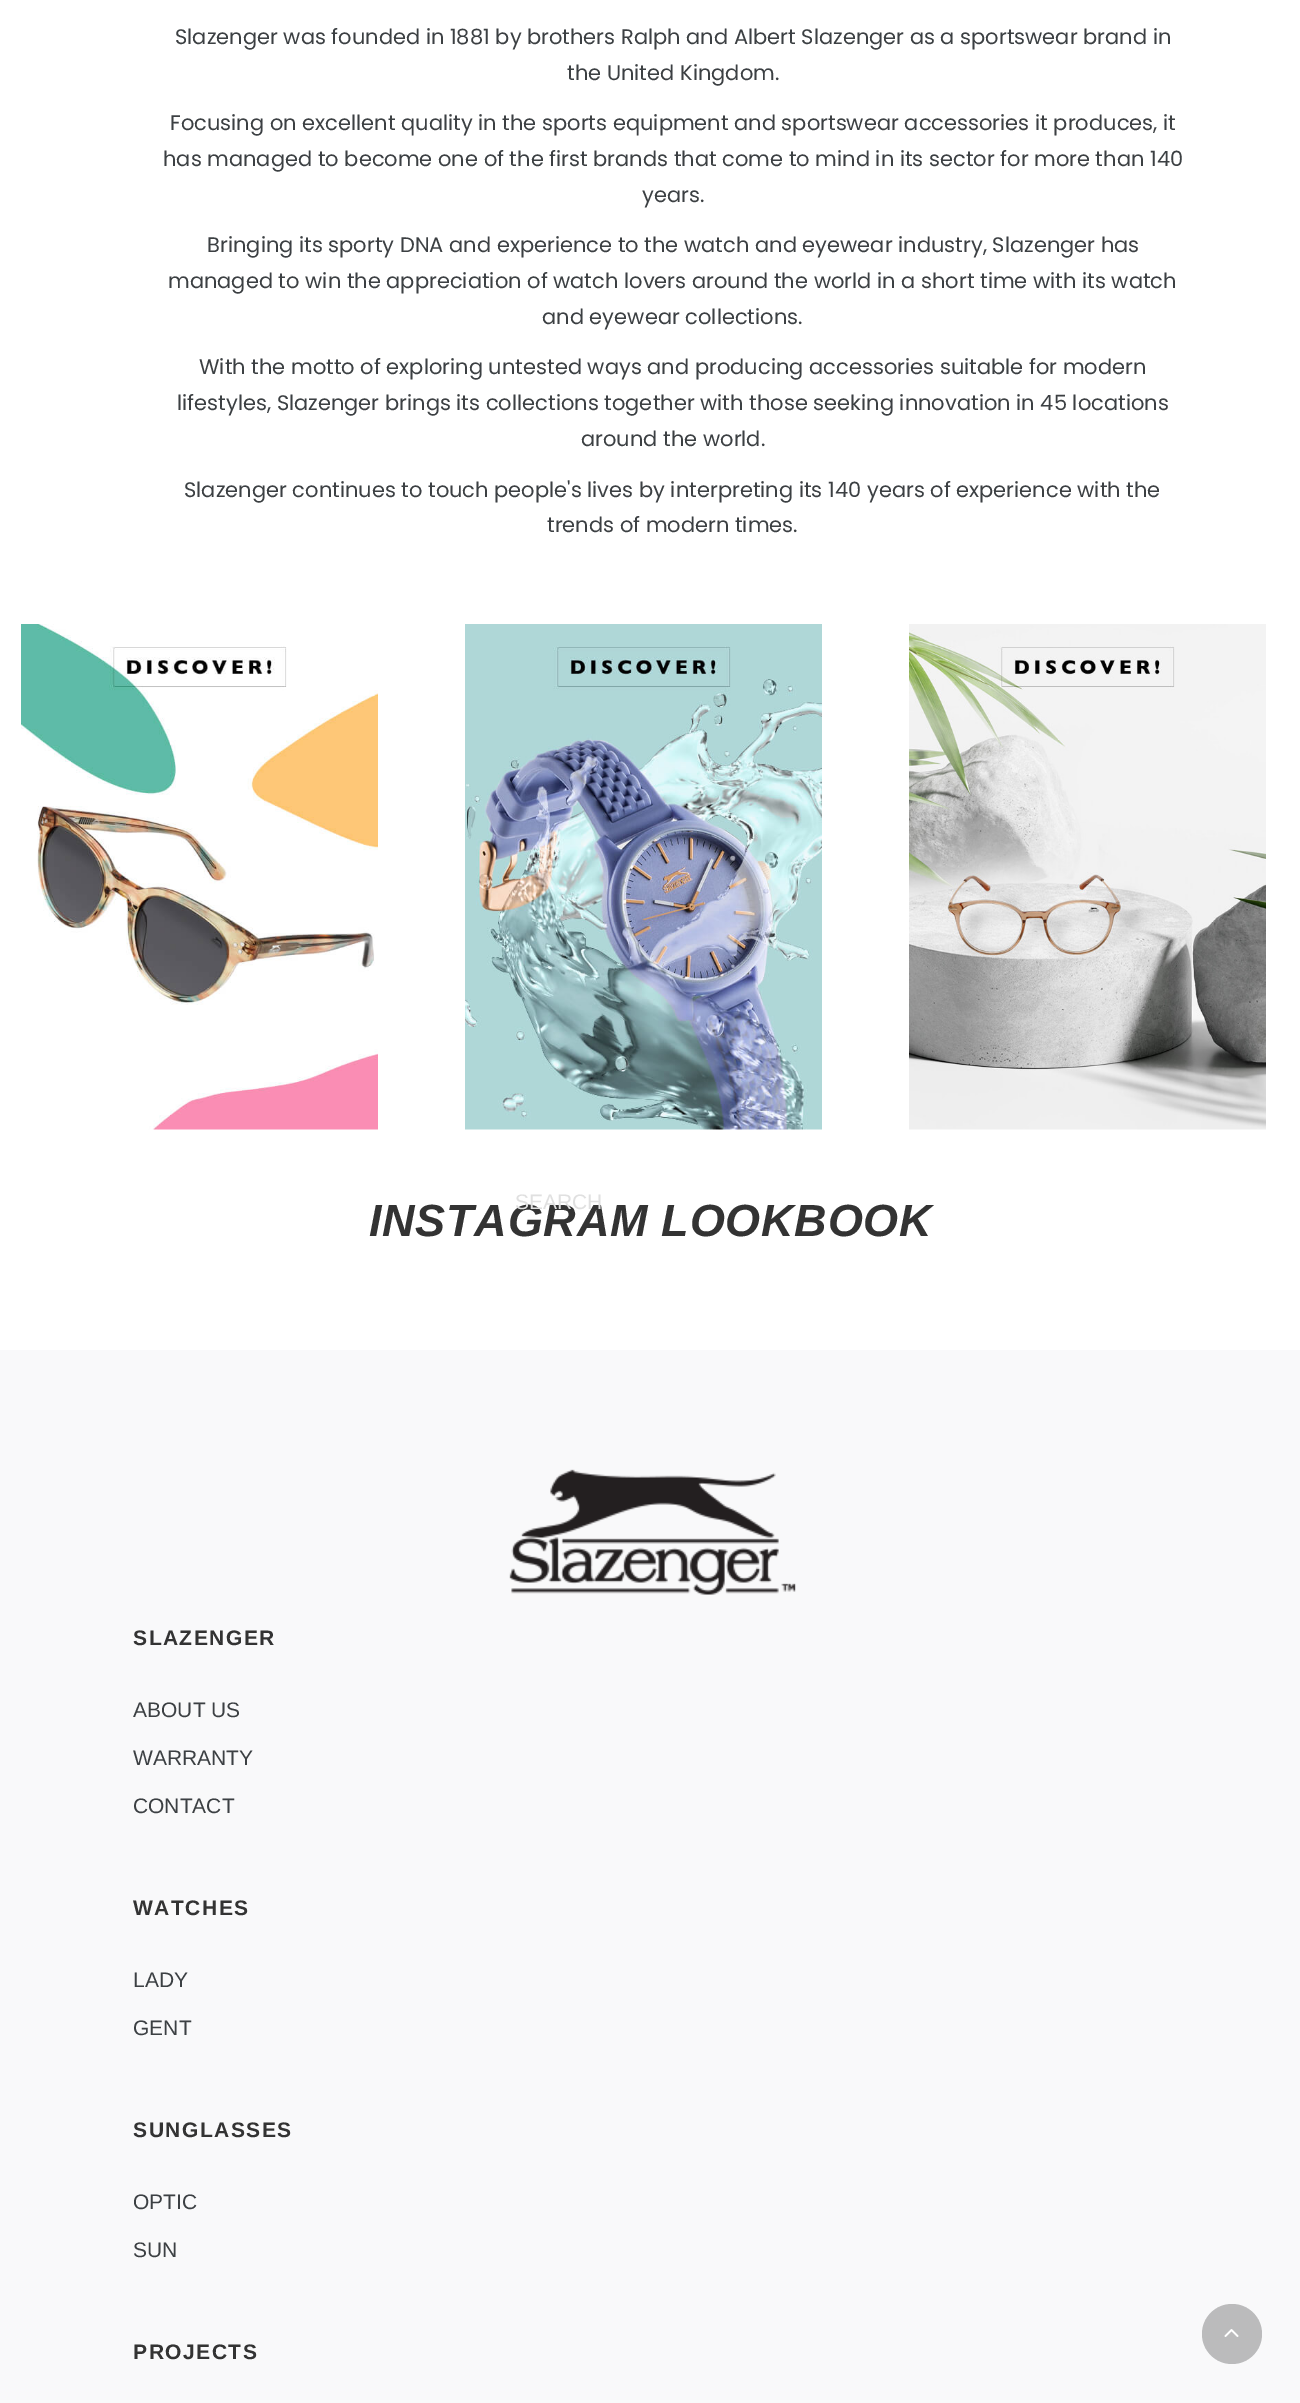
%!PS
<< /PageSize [1300 2403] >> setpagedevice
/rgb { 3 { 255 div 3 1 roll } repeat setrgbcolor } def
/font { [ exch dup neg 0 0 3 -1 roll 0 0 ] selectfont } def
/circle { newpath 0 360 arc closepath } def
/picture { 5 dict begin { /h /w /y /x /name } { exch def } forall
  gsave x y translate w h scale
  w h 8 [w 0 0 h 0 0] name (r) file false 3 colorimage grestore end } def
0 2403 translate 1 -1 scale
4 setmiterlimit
255 255 255 rgb
0 0 1300 2403 rectfill
(img/1.rgb) 21 624 357 506 picture
(img/2.rgb) 465 624 357 506 picture
(img/3.rgb) 909 624 357 506 picture
249 249 250 rgb
0 1350 1300 1053 rectfill
(img/4.rgb) 509 1469 287 126 picture
187 187 188 rgb
1232 2334 30 circle fill
(img/5.rgb) 1224 2329 15 8 picture
/Poppins-Regular 21 font
60 64 67 rgb
[
  [(Slazenger was founded in 1881 by brothers Ralph and Albert Slazenger as a sportswear brand in) 175 44]
  [(the United Kingdom.) 567 80]
  [(Focusing on excellent quality in the sports equipment and sportswear accessories it produces, it) 170 130]
  [(has managed to become one of the first brands that come to mind in its sector for more than 140) 163 166]
  [(years.) 642 202]
  [(Bringing its sporty DNA and experience to the watch and eyewear industry, Slazenger has) 207 252]
  [(managed to win the appreciation of watch lovers around the world in a short time with its watch) 168 288]
  [(and eyewear collections.) 542 324]
  [(With the motto of exploring untested ways and producing accessories suitable for modern) 199 374]
  [(lifestyles, Slazenger brings its collections together with those seeking innovation in 45 locations) 177 410]
  [(around the world.) 581 446]
  [(Slazenger continues to touch people's lives by interpreting its 140 years of experience with the) 184 497]
  [(trends of modern times.) 547 532]
] { aload pop moveto show } forall
/LiberationSans-BoldItalic 45 font
51 51 51 rgb
369 1236 moveto 0.75 0 (INSTAGRAM LOOKBOOK) ashow
/LiberationSans-Regular 21 font
224 224 224 rgb
515 1209 moveto (SEARCH) show
/LiberationSans-Bold 21 font
51 51 51 rgb
133 1645 moveto 1.5 0 (SLAZENGER) ashow
/LiberationSans-Regular 21 font
60 64 67 rgb
[
  [(ABOUT US) 133 1717]
  [(WARRANTY) 133 1765]
  [(CONTACT) 133 1813]
] { aload pop moveto show } forall
/LiberationSans-Bold 21 font
51 51 51 rgb
133 1915 moveto 1.5 0 (WATCHES) ashow
/LiberationSans-Regular 21 font
60 64 67 rgb
133 1987 moveto (LADY) show
133 2035 moveto (GENT) show
/LiberationSans-Bold 21 font
51 51 51 rgb
133 2137 moveto 1.5 0 (SUNGLASSES) ashow
/LiberationSans-Regular 21 font
60 64 67 rgb
133 2209 moveto (OPTIC) show
133 2257 moveto (SUN) show
/LiberationSans-Bold 21 font
51 51 51 rgb
133 2359 moveto 1.5 0 (PROJECTS) ashow
showpage
